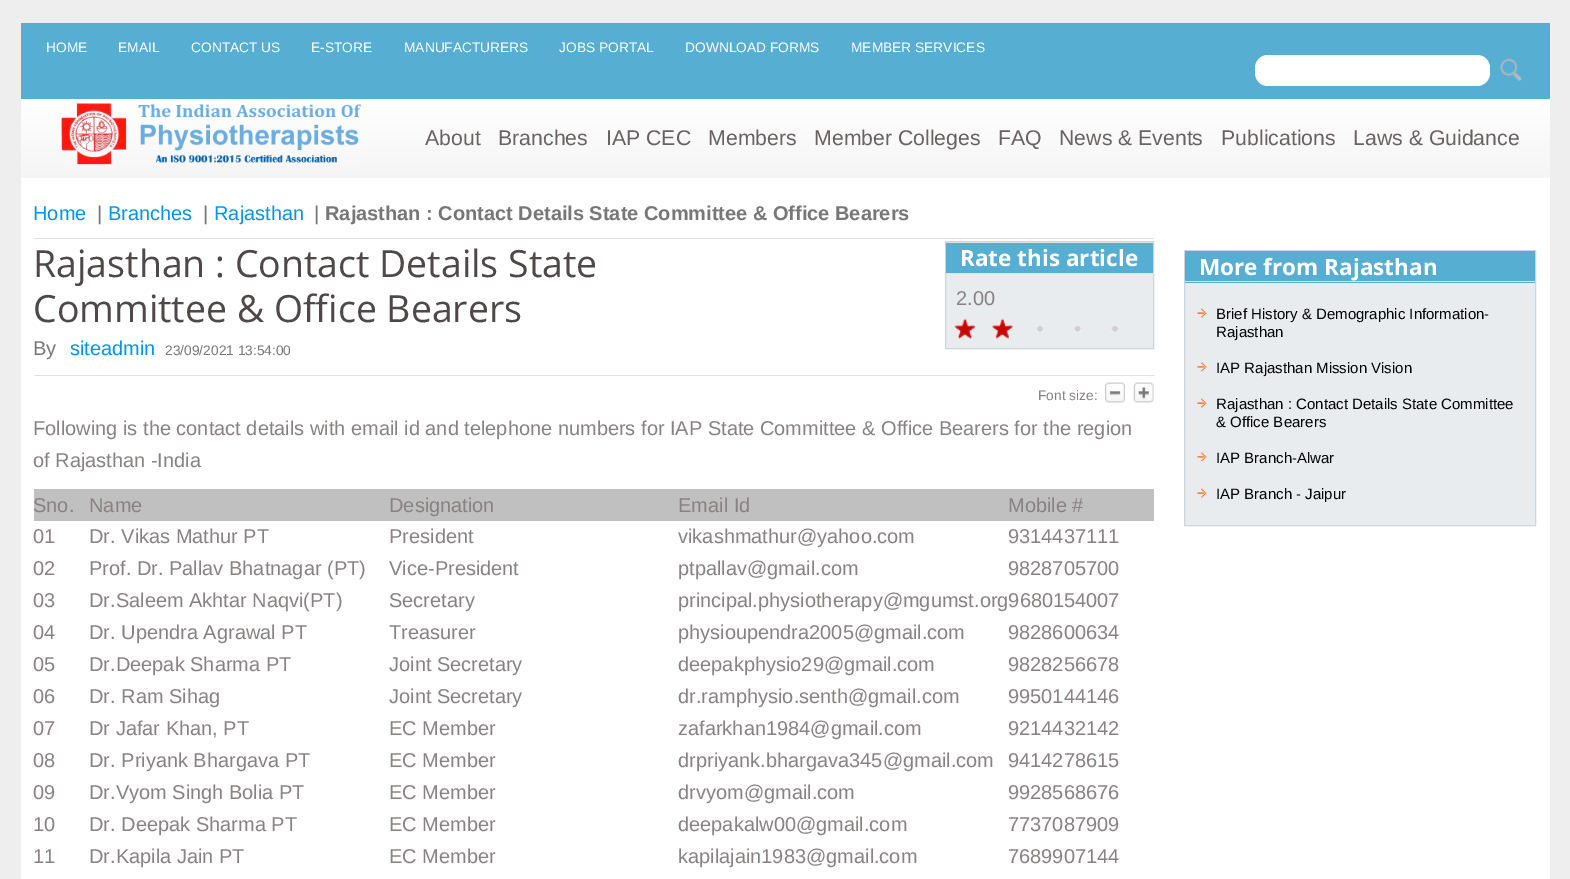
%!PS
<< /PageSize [1570 879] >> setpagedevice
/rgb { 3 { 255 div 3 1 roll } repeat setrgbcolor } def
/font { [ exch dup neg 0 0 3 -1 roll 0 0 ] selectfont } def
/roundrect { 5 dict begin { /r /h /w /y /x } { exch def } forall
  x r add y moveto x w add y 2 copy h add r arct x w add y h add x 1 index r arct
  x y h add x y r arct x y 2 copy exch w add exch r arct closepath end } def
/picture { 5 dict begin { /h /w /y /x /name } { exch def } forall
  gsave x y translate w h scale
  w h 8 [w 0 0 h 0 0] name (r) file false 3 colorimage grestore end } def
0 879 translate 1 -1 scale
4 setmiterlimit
239 238 238 rgb
0 0 1570 879 rectfill
255 255 255 rgb
21 178 1529 701 rectfill
86 174 210 rgb
21 23 1529 76 rectfill
255 255 255 rgb
1255 55 235 31 13 roundrect fill
(img/1.rgb) 1500 58 22 24 picture
gsave 21 99 moveto 1550 99 lineto 1550 178 lineto 21 178 lineto closepath clip newpath
<< /ShadingType 2 /ColorSpace /DeviceRGB /Coords [21 178 21 99] /Extend [true true] /Function << /FunctionType 2 /Domain [0 1] /C0 [0.965 0.961 0.961] /C1 [1 1 1] /N 1 >> >> shfill grestore
(img/2.rgb) 61 103 301 62 picture
225 225 225 rgb
34 238 1120 1 rectfill
34 375 1120 1 rectfill
233 236 239 rgb
945.5 241.5 moveto 1153.5 241.5 lineto 1153.5 348.5 lineto 945.5 348.5 lineto closepath gsave fill grestore
205 213 220 rgb
stroke
86 174 210 rgb
946 243 207 30 rectfill
225 225 225 rgb
946 273 207 1 rectfill
(img/3.rgb) 954 318 22 21 picture
(img/4.rgb) 992 318 21 21 picture
(img/5.rgb) 1036 325 8 8 picture
(img/6.rgb) 1074 325 8 8 picture
(img/5.rgb) 1111 325 8 8 picture
(img/7.rgb) 1105 382 20 21 picture
(img/8.rgb) 1133 382 21 21 picture
192 192 192 rgb
34 489 1120 32 rectfill
233 236 239 rgb
1185 283 350 242 rectfill
205 213 220 rgb
1184.5 250.5 351 275 rectstroke
86 174 210 rgb
1185 251 350 32 rectfill
225 225 225 rgb
1185 281 350 1 rectfill
(img/9.rgb) 1197 308 10 10 picture
(img/10.rgb) 1197 362 10 10 picture
(img/9.rgb) 1197 398 10 10 picture
(img/10.rgb) 1197 452 10 10 picture
(img/9.rgb) 1197 488 10 10 picture
/LiberationSans-Regular 13.75 font
255 255 255 rgb
[
  [(HOME) 46 52]
  [(EMAIL) 118 52]
  [(CONTACT US) 191 52]
  [(E-STORE) 311 52]
  [(MANUFACTURERS) 404 52]
  [(JOBS PORTAL) 559 52]
  [(DOWNLOAD FORMS) 685 52]
  [(MEMBER SERVICES) 851 52]
] { aload pop moveto show } forall
/LiberationSans-Regular 21.25 font
105 98 98 rgb
[
  [(About) 425 145]
  [(Branches) 498 145]
  [(IAP CEC) 606 145]
  [(Members) 708 145]
  [(Member Colleges) 814 145]
  [(FAQ) 998 145]
  [(News & Events) 1059 145]
  [(Publications) 1221 145]
  [(Laws & Guidance) 1353 145]
] { aload pop moveto show } forall
/LiberationSans-Regular 20 font
0 149 229 rgb
33 220 moveto (Home) show
119 119 119 rgb
97 220 moveto (|) show
0 149 229 rgb
108 220 moveto (Branches) show
119 119 119 rgb
203 220 moveto (|) show
0 149 229 rgb
214 220 moveto (Rajasthan) show
119 119 119 rgb
314 220 moveto (|) show
/LiberationSans-Bold 20 font
325 220 moveto (Rajasthan : Contact Details State Committee & Office Bearers) show
/OpenSans-Regular 37.5 font
78 72 72 rgb
33 277 moveto (Rajasthan : Contact Details State) show
33 322 moveto (Committee & Office Bearers) show
/LiberationSans-Regular 20 font
119 119 119 rgb
33 355 moveto (By) show
0 149 229 rgb
70 355 moveto (siteadmin) show
/LiberationSans-Regular 13.75 font
119 119 119 rgb
165 355 moveto (23/09/2021 13:54:00) show
/OpenSans-Bold 22.5 font
255 255 255 rgb
960 266 moveto (Rate this article) show
/LiberationSans-Regular 20 font
136 130 130 rgb
956 305 moveto (2.00) show
/LiberationSans-Regular 13.75 font
1038 400 moveto (Font size:) show
/LiberationSans-Regular 20 font
[
  [(Following is the contact details with email id and telephone numbers for IAP State Committee & Office Bearers for the region) 33 435]
  [(of Rajasthan -India) 33 467]
  [(Sno.) 33 512]
  [(Name) 89 512]
  [(Designation) 389 512]
  [(Email Id) 678 512]
  [(Mobile #) 1008 512]
  [(01) 33 543]
  [(Dr. Vikas Mathur PT) 89 543]
  [(President) 389 543]
  [(vikashmathur@yahoo.com) 678 543]
  [(9314437111) 1008 543]
  [(02) 33 575]
  [(Prof. Dr. Pallav Bhatnagar \(PT\)) 89 575]
  [(Vice-President) 389 575]
  [(ptpallav@gmail.com) 678 575]
  [(9828705700) 1008 575]
  [(03) 33 607]
  [(Dr.Saleem Akhtar Naqvi\(PT\)) 89 607]
  [(Secretary) 389 607]
  [(principal.physiotherapy@mgumst.org9680154007) 678 607]
  [(04) 33 639]
  [(Dr. Upendra Agrawal PT) 89 639]
  [(Treasurer) 389 639]
  [(physioupendra2005@gmail.com) 678 639]
  [(9828600634) 1008 639]
  [(05) 33 671]
  [(Dr.Deepak Sharma PT) 89 671]
  [(Joint Secretary) 389 671]
  [(deepakphysio29@gmail.com) 678 671]
  [(9828256678) 1008 671]
  [(06) 33 703]
  [(Dr. Ram Sihag) 89 703]
  [(Joint Secretary) 389 703]
  [(dr.ramphysio.senth@gmail.com) 678 703]
  [(9950144146) 1008 703]
  [(07) 33 735]
  [(Dr Jafar Khan, PT) 89 735]
  [(EC Member) 389 735]
  [(zafarkhan1984@gmail.com) 678 735]
  [(9214432142) 1008 735]
  [(08) 33 767]
  [(Dr. Priyank Bhargava PT) 89 767]
  [(EC Member) 389 767]
  [(drpriyank.bhargava345@gmail.com) 678 767]
  [(9414278615) 1008 767]
  [(09) 33 799]
  [(Dr.Vyom Singh Bolia PT) 89 799]
  [(EC Member) 389 799]
  [(drvyom@gmail.com) 678 799]
  [(9928568676) 1008 799]
  [(10) 33 831]
  [(Dr. Deepak Sharma PT) 89 831]
  [(EC Member) 389 831]
  [(deepakalw00@gmail.com) 678 831]
  [(7737087909) 1008 831]
  [(11) 33 863]
  [(Dr.Kapila Jain PT) 89 863]
  [(EC Member) 389 863]
  [(kapilajain1983@gmail.com) 678 863]
  [(7689907144) 1008 863]
] { aload pop moveto show } forall
/OpenSans-Bold 22.5 font
255 255 255 rgb
1199 275 moveto (More from Rajasthan) show
/LiberationSans-Regular 15 font
0 0 0 rgb
[
  [(Brief History & Demographic Information-) 1216 319]
  [(Rajasthan) 1216 337]
  [(IAP Rajasthan Mission Vision) 1216 373]
  [(Rajasthan : Contact Details State Committee) 1216 409]
  [(& Office Bearers) 1216 427]
  [(IAP Branch-Alwar) 1216 463]
  [(IAP Branch - Jaipur) 1216 499]
] { aload pop moveto show } forall
showpage
